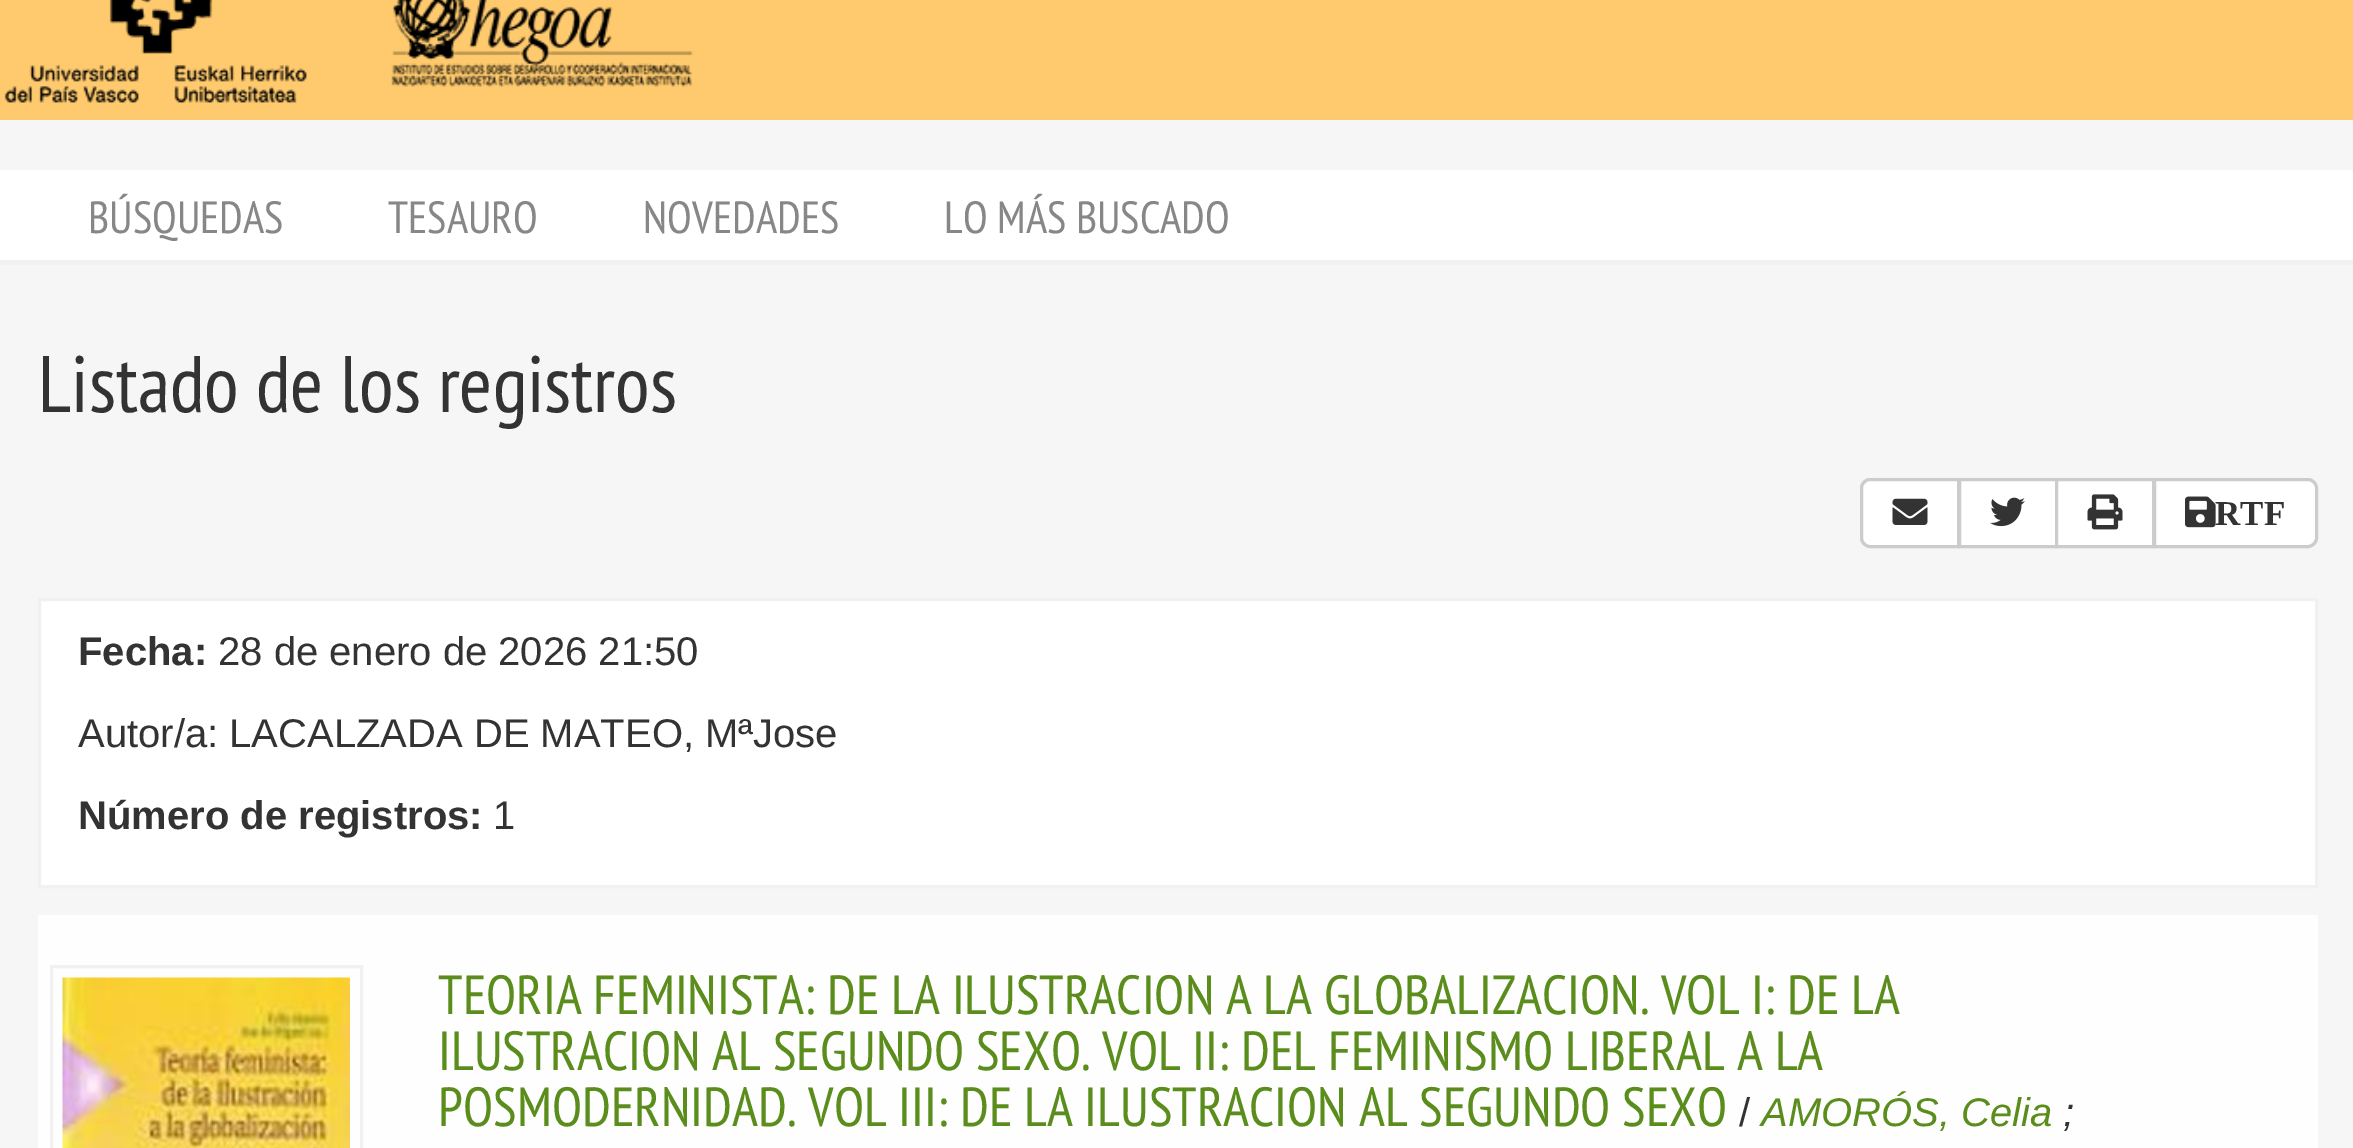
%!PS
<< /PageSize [2353 1148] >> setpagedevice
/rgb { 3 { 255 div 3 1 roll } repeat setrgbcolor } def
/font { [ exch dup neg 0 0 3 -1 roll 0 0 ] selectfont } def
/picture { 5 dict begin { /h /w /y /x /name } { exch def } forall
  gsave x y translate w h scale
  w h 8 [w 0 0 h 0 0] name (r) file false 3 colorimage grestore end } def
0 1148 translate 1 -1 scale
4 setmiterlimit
246 246 246 rgb
0 0 2353 1148 rectfill
255 202 109 rgb
0 0 2353 120 rectfill
(img/1.rgb) 4 0 689 103 picture
255 255 255 rgb
0 170 2353 90 rectfill
241 241 241 rgb
0 260 2353 5 rectfill
255 255 255 rgb
1870 479.5 moveto 1958.5 479.5 lineto 1958.5 546.5 lineto 1870 546.5 lineto 1865.5 546.5 1861.5 542.5 1861.5 538 curveto 1861.5 488 lineto 1861.5 483.5 1865.5 479.5 1870 479.5 curveto closepath gsave fill grestore
204 204 204 rgb
3 setlinewidth
stroke
(img/2.rgb) 1892 498 36 27 picture
255 255 255 rgb
1959.5 479.5 moveto 2056.5 479.5 lineto 2056.5 546.5 lineto 1959.5 546.5 lineto closepath gsave fill grestore
204 204 204 rgb
stroke
(img/3.rgb) 1990 497 35 30 picture
255 255 255 rgb
2056.5 479.5 moveto 2153.5 479.5 lineto 2153.5 546.5 lineto 2056.5 546.5 lineto closepath gsave fill grestore
204 204 204 rgb
stroke
(img/4.rgb) 2087 494 36 36 picture
255 255 255 rgb
2154.5 479.5 moveto 2308 479.5 lineto 2312.5 479.5 2316.5 483.5 2316.5 488 curveto 2316.5 538 lineto 2316.5 542.5 2312.5 546.5 2308 546.5 curveto 2154.5 546.5 lineto closepath gsave fill grestore
204 204 204 rgb
stroke
(img/5.rgb) 2185 496 31 32 picture
255 255 255 rgb
39.5 599.5 moveto 2316.5 599.5 lineto 2316.5 886.5 lineto 39.5 886.5 lineto closepath gsave fill grestore
241 241 241 rgb
stroke
254 254 254 rgb
38 915 2280 233 rectfill
241 241 241 rgb
51.5 966.5 310 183 rectstroke
(img/6.rgb) 62 977 288 171 picture
/PTSansNarrow-Regular 45 font
135 135 135 rgb
[
  [(BÚSQUEDAS) 88 233]
  [(TESAURO) 388 233]
  [(NOVEDADES) 643 233]
  [(LO MÁS BUSCADO) 944 233]
] { aload pop moveto show } forall
/PTSansNarrow-Regular 80 font
51 51 51 rgb
38 412 moveto (Listado de los registros) show
/LiberationSerif-Bold 35 font
2215 525 moveto (RTF) show
/LiberationSans-Bold 40 font
78 665 moveto (Fecha:) show
/LiberationSans-Regular 40 font
218 665 moveto (28 de enero de 2026 21:50) show
78 747 moveto (Autor/a: LACALZADA DE MATEO, MªJose) show
/LiberationSans-Bold 40 font
78 829 moveto (Número de registros:) show
/LiberationSans-Regular 40 font
493 829 moveto (1) show
/PTSansNarrow-Regular 55 font
90 141 27 rgb
[
  [(TEORIA FEMINISTA: DE LA ILUSTRACION A LA GLOBALIZACION. VOL I: DE LA) 438 1014]
  [(ILUSTRACION AL SEGUNDO SEXO. VOL II: DEL FEMINISMO LIBERAL A LA) 438 1070]
  [(POSMODERNIDAD. VOL III: DE LA ILUSTRACION AL SEGUNDO SEXO) 438 1126]
] { aload pop moveto show } forall
/LiberationSans-Regular 40 font
51 51 51 rgb
1739 1126 moveto (/) show
/LiberationSans-Italic 40 font
90 141 27 rgb
1761 1126 moveto (AMORÓS, Celia) show
51 51 51 rgb
2063 1126 moveto (;) show
showpage
